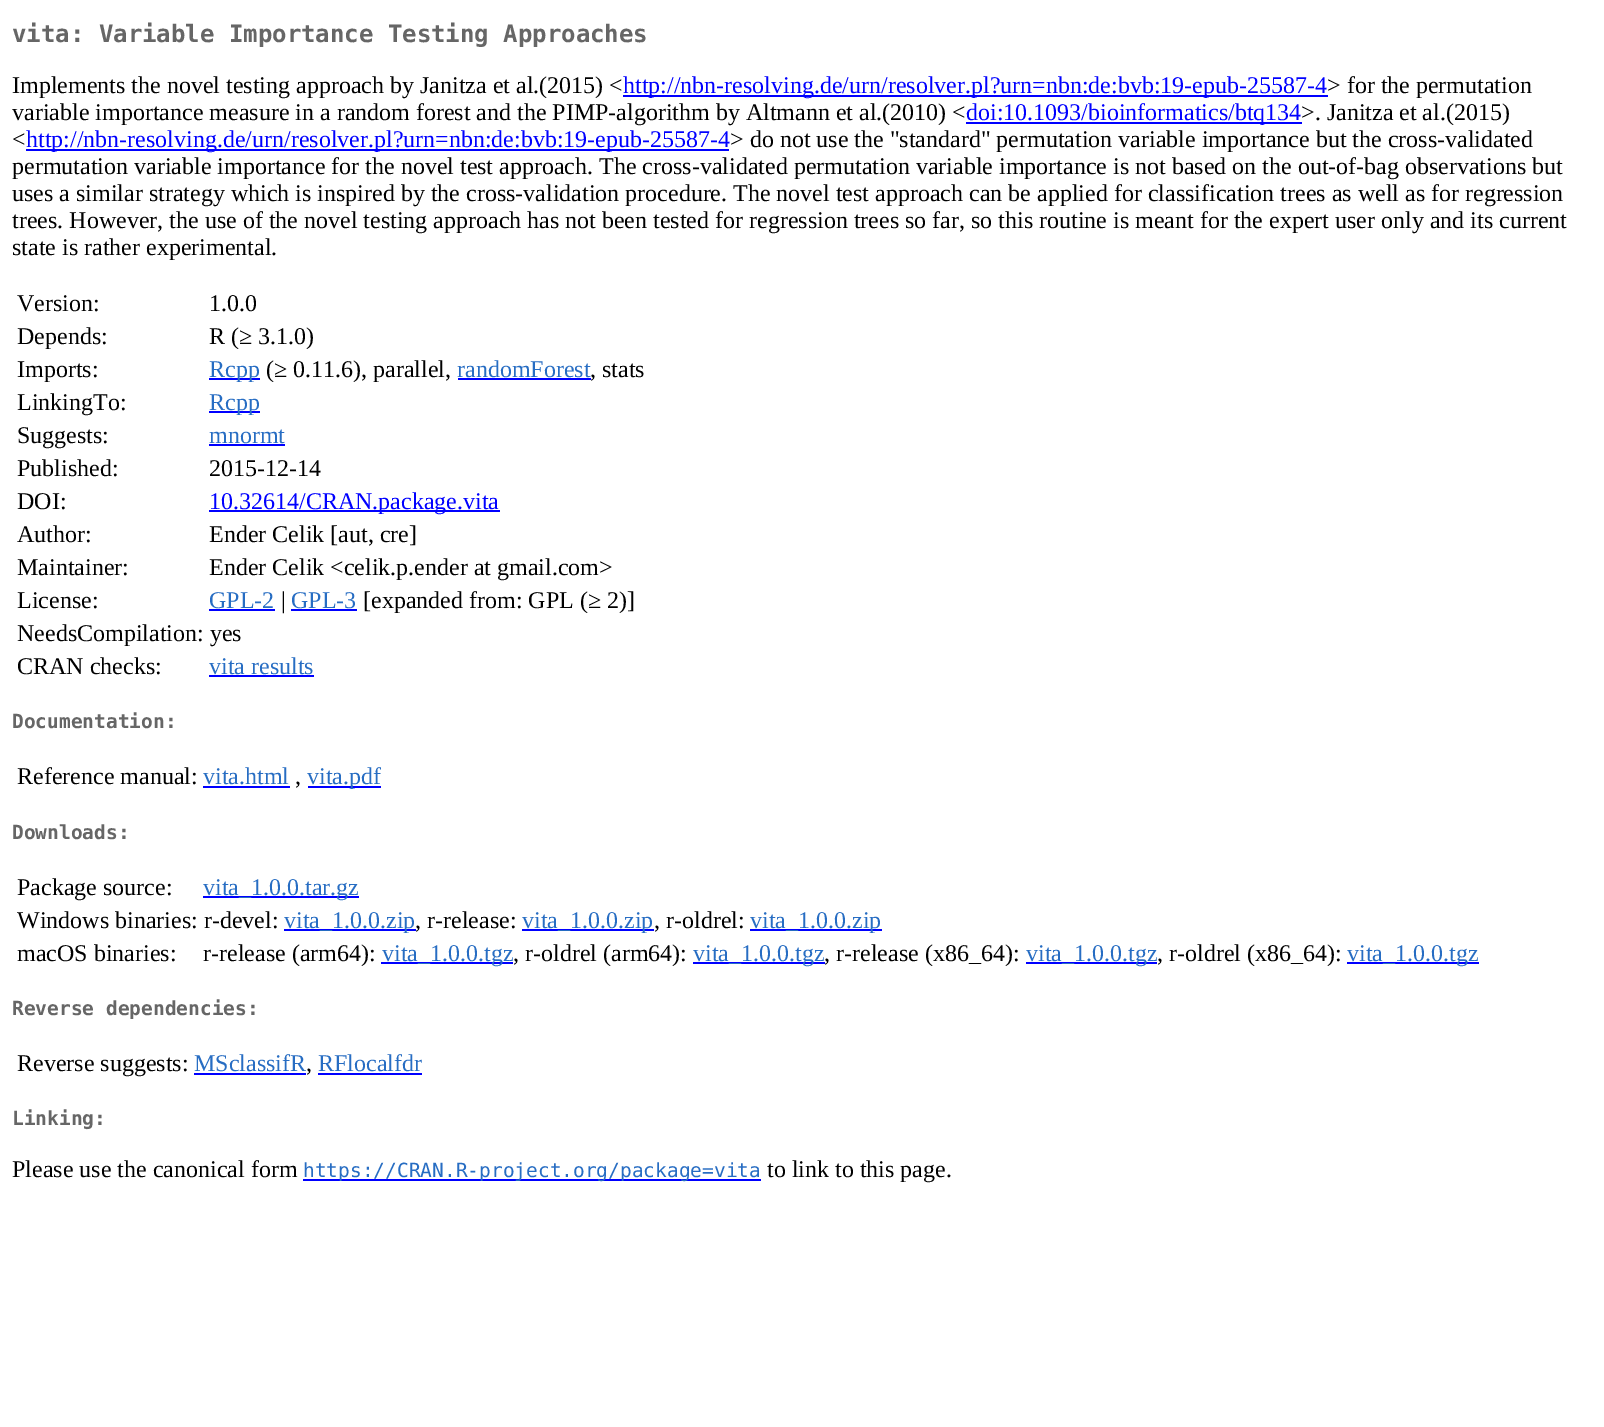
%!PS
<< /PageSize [1604 1427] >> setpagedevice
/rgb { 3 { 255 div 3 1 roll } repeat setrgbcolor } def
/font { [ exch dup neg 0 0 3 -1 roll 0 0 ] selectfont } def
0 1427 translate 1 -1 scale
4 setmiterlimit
255 255 255 rgb
0 0 1604 1427 rectfill
[
  [623 95 705 2 0 0 255]
  [966 122 336 2 0 0 255]
  [26 149 703 2 0 0 255]
  [209 378 51 2 0 0 255]
  [458 378 133 2 0 0 255]
  [209 411 51 2 0 0 255]
  [209 444 76 2 0 0 255]
  [209 510 291 2 0 0 255]
  [209 609 66 2 0 0 255]
  [291 609 66 2 0 0 255]
  [209 675 105 2 0 0 255]
  [203 786 87 2 0 0 255]
  [308 786 73 2 0 0 255]
  [203 896 156 2 0 0 255]
  [284 929 132 2 0 0 255]
  [522 929 132 2 0 0 255]
  [750 929 132 2 0 0 255]
  [381 962 132 2 0 0 255]
  [693 962 132 2 0 0 255]
  [1026 962 131 2 0 0 255]
  [1347 962 132 2 0 0 255]
  [194 1073 112 2 0 0 255]
  [318 1073 104 2 0 0 255]
  [303 1179 458 2 0 0 255]
] { aload pop rgb rectfill } forall
/DejaVuSansMono-Bold 24 font
102 102 102 rgb
12 42 moveto (vita: Variable Importance Testing Approaches) show
/LiberationSerif-Regular 24 font
0 0 0 rgb
12 93 moveto (Implements the novel testing approach by Janitza et al.\(2015\) <) show
0 0 255 rgb
623 93 moveto (http://nbn-resolving.de/urn/resolver.pl?urn=nbn:de:bvb:19-epub-25587-4) show
0 0 0 rgb
1327 93 moveto (> for the permutation) show
12 120 moveto (variable importance measure in a random forest and the PIMP-algorithm by Altmann et al.\(2010\) <) show
0 0 255 rgb
966 120 moveto (doi:10.1093/bioinformatics/btq134) show
0 0 0 rgb
1301 120 moveto (>. Janitza et al.\(2015\)) show
12 147 moveto (<) show
0 0 255 rgb
26 147 moveto (http://nbn-resolving.de/urn/resolver.pl?urn=nbn:de:bvb:19-epub-25587-4) show
0 0 0 rgb
[
  [(> do not use the "standard" permutation variable importance but the cross-validated) 730 147]
  [(permutation variable importance for the novel test approach. The cross-validated permutation variable importance is not based on the out-of-bag observations but) 12 174]
  [(uses a similar strategy which is inspired by the cross-validation procedure. The novel test approach can be applied for classification trees as well as for regression) 12 201]
  [(trees. However, the use of the novel testing approach has not been tested for regression trees so far, so this routine is meant for the expert user only and its current) 12 228]
  [(state is rather experimental.) 12 255]
  [(Version:) 17 311]
  [(1.0.0) 209 311]
  [(Depends:) 17 344]
  [(R \(≥ 3.1.0\)) 209 344]
  [(Imports:) 17 377]
] { aload pop moveto show } forall
39 109 195 rgb
209 377 moveto (Rcpp) show
0 0 0 rgb
266 377 moveto (\(≥ 0.11.6\), parallel,) show
39 109 195 rgb
457 377 moveto (randomForest) show
0 0 0 rgb
590 377 moveto (, stats) show
17 410 moveto (LinkingTo:) show
39 109 195 rgb
209 410 moveto (Rcpp) show
0 0 0 rgb
17 443 moveto (Suggests:) show
39 109 195 rgb
209 443 moveto (mnormt) show
0 0 0 rgb
[
  [(Published:) 17 476]
  [(2015-12-14) 209 476]
  [(DOI:) 17 509]
] { aload pop moveto show } forall
0 0 255 rgb
209 509 moveto (10.32614/CRAN.package.vita) show
0 0 0 rgb
[
  [(Author:) 17 542]
  [(Ender Celik [aut, cre]) 209 542]
  [(Maintainer:) 17 575]
  [(Ender Celik <celik.p.ender at gmail.com>) 209 575]
  [(License:) 17 608]
] { aload pop moveto show } forall
39 109 195 rgb
209 608 moveto (GPL-2) show
0 0 0 rgb
281 608 moveto (|) show
39 109 195 rgb
291 608 moveto (GPL-3) show
0 0 0 rgb
[
  [([expanded from: GPL \(≥ 2\)]) 363 608]
  [(NeedsCompilation: yes) 17 641]
  [(CRAN checks:) 17 674]
] { aload pop moveto show } forall
39 109 195 rgb
209 674 moveto (vita results) show
/DejaVuSansMono-Bold 19.5 font
102 102 102 rgb
12 728 moveto (Documentation:) show
/LiberationSerif-Regular 24 font
0 0 0 rgb
17 784 moveto (Reference manual:) show
39 109 195 rgb
203 784 moveto (vita.html) show
0 0 0 rgb
295 784 moveto (,) show
39 109 195 rgb
307 784 moveto (vita.pdf) show
/DejaVuSansMono-Bold 19.5 font
102 102 102 rgb
12 839 moveto (Downloads:) show
/LiberationSerif-Regular 24 font
0 0 0 rgb
17 895 moveto (Package source:) show
39 109 195 rgb
203 895 moveto (vita_1.0.0.tar.gz) show
0 0 0 rgb
17 928 moveto (Windows binaries: r-devel:) show
39 109 195 rgb
284 928 moveto (vita_1.0.0.zip) show
0 0 0 rgb
415 928 moveto (, r-release:) show
39 109 195 rgb
522 928 moveto (vita_1.0.0.zip) show
0 0 0 rgb
654 928 moveto (, r-oldrel:) show
39 109 195 rgb
750 928 moveto (vita_1.0.0.zip) show
0 0 0 rgb
17 961 moveto (macOS binaries:) show
203 961 moveto (r-release \(arm64\):) show
39 109 195 rgb
382 961 moveto (vita_1.0.0.tgz) show
0 0 0 rgb
513 961 moveto (, r-oldrel \(arm64\):) show
39 109 195 rgb
693 961 moveto (vita_1.0.0.tgz) show
0 0 0 rgb
824 961 moveto (, r-release \(x86_64\):) show
39 109 195 rgb
1026 961 moveto (vita_1.0.0.tgz) show
0 0 0 rgb
1157 961 moveto (, r-oldrel \(x86_64\):) show
39 109 195 rgb
1347 961 moveto (vita_1.0.0.tgz) show
/DejaVuSansMono-Bold 19.5 font
102 102 102 rgb
12 1015 moveto (Reverse dependencies:) show
/LiberationSerif-Regular 24 font
0 0 0 rgb
17 1071 moveto (Reverse suggests:) show
39 109 195 rgb
194 1071 moveto (MSclassifR) show
0 0 0 rgb
306 1071 moveto (,) show
39 109 195 rgb
318 1071 moveto (RFlocalfdr) show
/DejaVuSansMono-Bold 19.5 font
102 102 102 rgb
12 1125 moveto (Linking:) show
/LiberationSerif-Regular 24 font
0 0 0 rgb
12 1177 moveto (Please use the canonical form) show
/DejaVuSansMono-Regular 19.5 font
39 109 195 rgb
303 1177 moveto (https://CRAN.R-project.org/package=vita) show
/LiberationSerif-Regular 24 font
0 0 0 rgb
767 1177 moveto (to link to this page.) show
showpage
